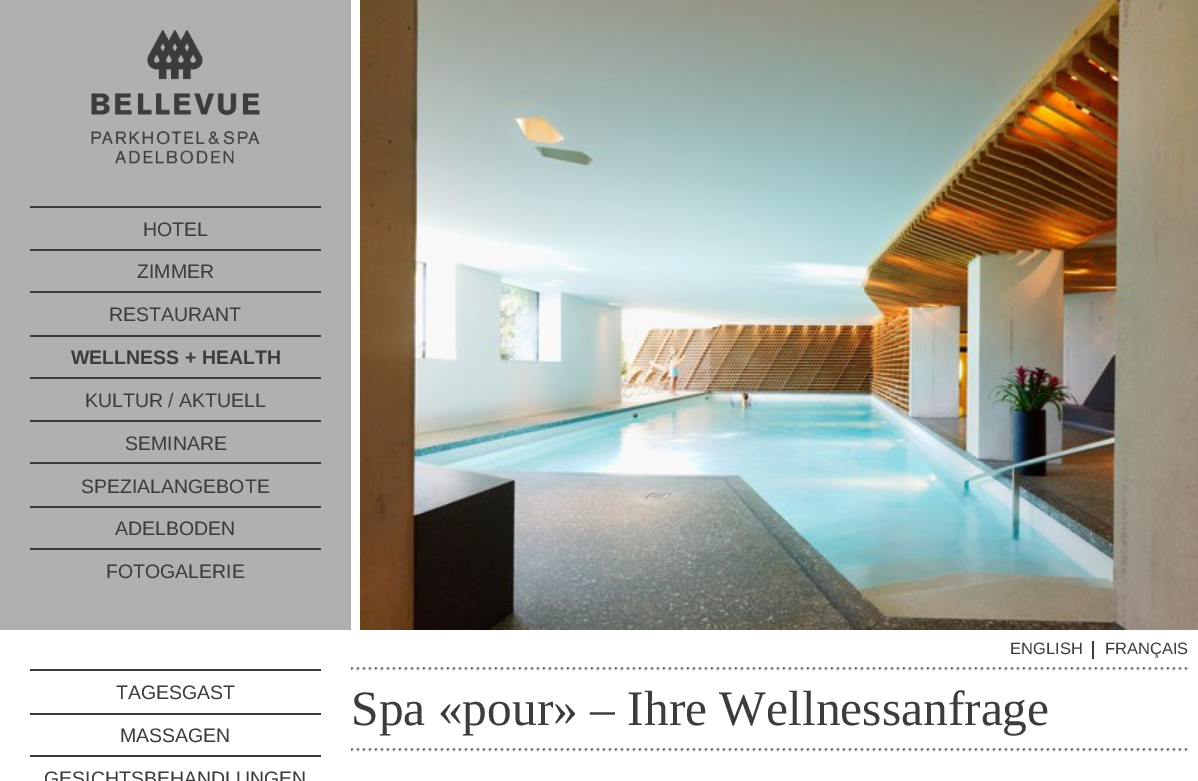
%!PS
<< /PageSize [1198 781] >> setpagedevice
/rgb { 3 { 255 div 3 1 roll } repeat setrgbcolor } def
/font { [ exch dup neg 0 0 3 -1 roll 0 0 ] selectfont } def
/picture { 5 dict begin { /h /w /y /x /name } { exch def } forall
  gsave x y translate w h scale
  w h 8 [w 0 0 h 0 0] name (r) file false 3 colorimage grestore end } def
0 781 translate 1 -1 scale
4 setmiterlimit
255 255 255 rgb
0 0 1198 781 rectfill
175 176 178 rgb
0 0 351 630 rectfill
(img/1.rgb) 91 30 169 134 picture
[
  [30 206 291 2 60 60 59]
  [30 249 291 2 60 60 59]
  [30 291 291 2 60 60 59]
  [30 335 291 2 60 60 59]
  [30 377 291 2 60 60 59]
  [30 420 291 2 60 60 59]
  [30 462 291 2 60 60 59]
  [30 506 291 2 60 60 59]
  [30 548 291 2 60 60 59]
] { aload pop rgb rectfill } forall
(img/2.rgb) 360 0 838 630 picture
[
  [1092 641 2 18 60 60 59]
  [30 669 291 2 60 60 59]
  [30 713 291 2 60 60 59]
  [30 755 291 2 60 60 59]
] { aload pop rgb rectfill } forall
(img/3.rgb) 351 667 838 4 picture
(img/3.rgb) 351 748 838 4 picture
/LiberationSans-Regular 19.5 font
[
  [(HOTEL) 143 236]
  [(ZIMMER) 137 278]
  [(RESTAURANT) 109 321]
] { aload pop moveto show } forall
/LiberationSans-Bold 19.5 font
71 364 moveto (WELLNESS + HEALTH) show
/LiberationSans-Regular 19.5 font
[
  [(KULTUR / AKTUELL) 85 407]
  [(SEMINARE) 125 450]
  [(SPEZIALANGEBOTE) 81 493]
  [(ADELBODEN) 115 535]
  [(FOTOGALERIE) 106 578]
] { aload pop moveto show } forall
/LiberationSans-Regular 16.5 font
1010 654 moveto (ENGLISH) show
1105 654 moveto (FRANÇAIS) show
/LiberationSans-Regular 19.5 font
[
  [(TAGESGAST) 116 699]
  [(MASSAGEN) 120 742]
  [(GESICHTSBEHANDLUNGEN) 44 785]
] { aload pop moveto show } forall
/LiberationSerif-Regular 49.5 font
351 725 moveto (Spa «pour» – Ihre Wellnessanfrage) show
showpage
